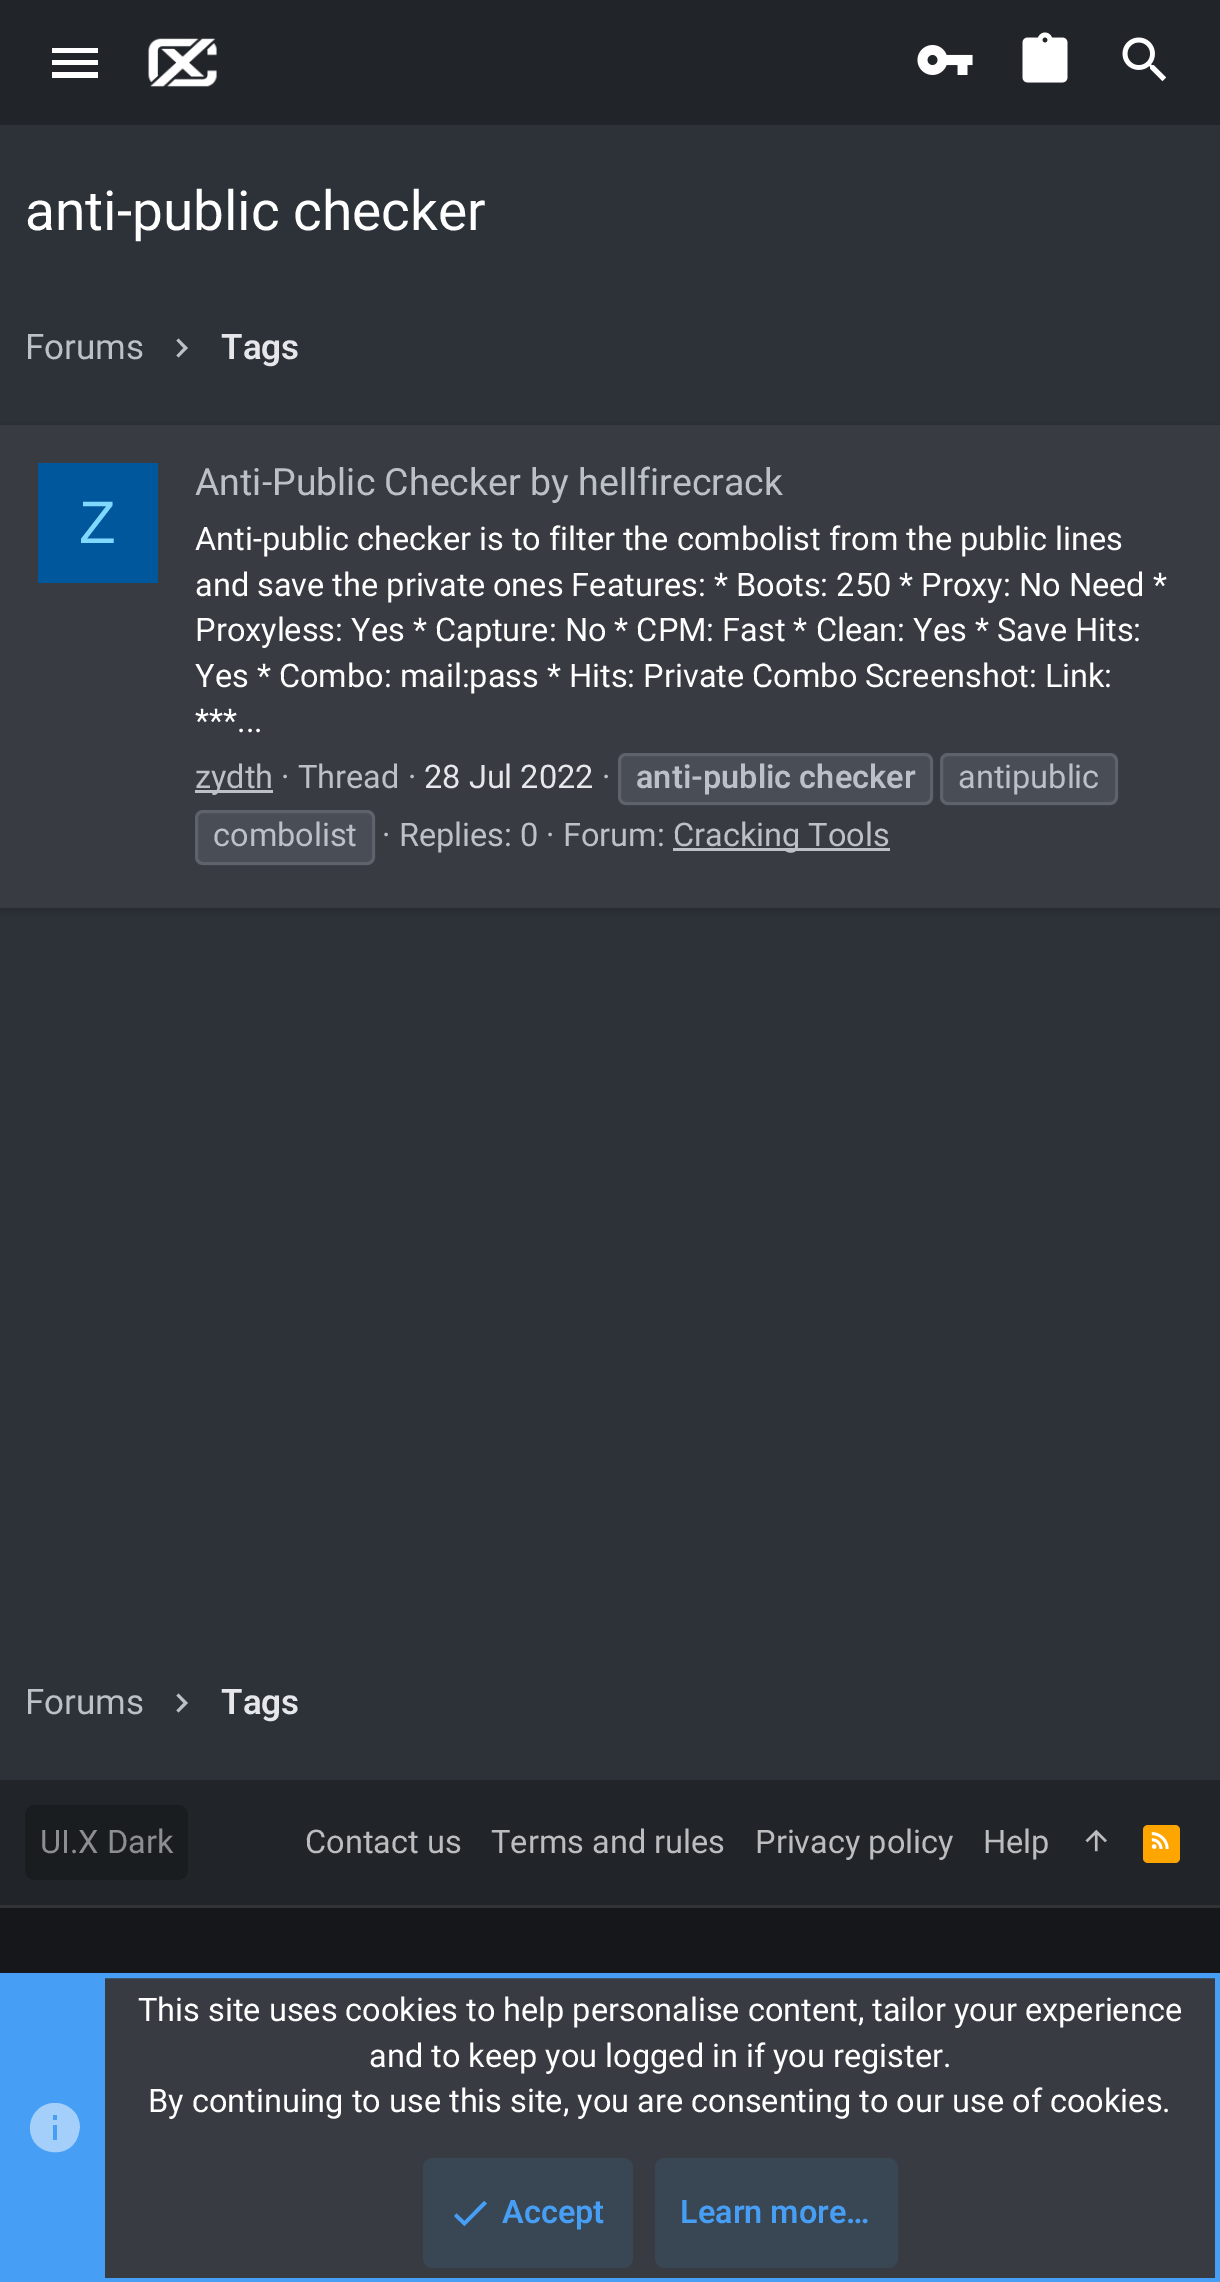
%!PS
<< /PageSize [1220 2282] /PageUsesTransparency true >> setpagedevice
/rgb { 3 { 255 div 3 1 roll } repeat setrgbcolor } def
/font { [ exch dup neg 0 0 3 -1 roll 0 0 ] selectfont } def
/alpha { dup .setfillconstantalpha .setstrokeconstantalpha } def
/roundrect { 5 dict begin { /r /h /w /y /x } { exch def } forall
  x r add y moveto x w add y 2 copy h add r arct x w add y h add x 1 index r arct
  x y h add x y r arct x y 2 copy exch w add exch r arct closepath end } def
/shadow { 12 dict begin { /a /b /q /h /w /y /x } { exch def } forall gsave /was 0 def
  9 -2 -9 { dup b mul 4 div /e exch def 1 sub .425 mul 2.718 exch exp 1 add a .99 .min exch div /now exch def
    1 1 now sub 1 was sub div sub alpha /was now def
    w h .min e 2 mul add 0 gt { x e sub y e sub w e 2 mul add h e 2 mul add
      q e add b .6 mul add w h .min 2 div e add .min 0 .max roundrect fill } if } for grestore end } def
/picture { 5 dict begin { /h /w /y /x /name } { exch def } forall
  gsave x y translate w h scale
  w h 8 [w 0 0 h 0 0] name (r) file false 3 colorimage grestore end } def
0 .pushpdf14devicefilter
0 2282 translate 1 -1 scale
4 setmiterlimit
45 50 56 rgb
0 0 1220 2282 rectfill
33 36 40 rgb
0 0 1220 125 rectfill
255 255 255 rgb
52 48 moveto 98 48 lineto 98 53 lineto 52 53 lineto closepath 52 60 moveto 98 60 lineto 98 65 lineto 52 65 lineto closepath 52 72 moveto 98 72 lineto 98 78 lineto 52 78 lineto closepath fill
(img/1.rgb) 148 38 69 49 picture
(img/2.rgb) 917 45 56 30 picture
(img/3.rgb) 1022 32 46 51 picture
(img/4.rgb) 1122 37 45 45 picture
188 192 199 rgb
176.5 355.5 moveto 183.5 348 lineto 176.5 340.5 lineto 178.5 338.5 lineto 188 348 lineto 178.5 357.5 lineto closepath fill
0 0 0 rgb
0 428 1220 482 0 6 0.2 shadow
[
  [0 425 1220 483 56 60 66]
  [38 463 120 120 1 87 155]
  [195 790 78 3 188 192 199]
] { aload pop rgb rectfill } forall
72 77 86 rgb
618 753 315 52 8 roundrect fill
0.12 alpha
255 255 255 rgb
3 setlinewidth
619.5 754.5 312 49 6.5 roundrect stroke
1 alpha
72 77 86 rgb
940 753 178 52 8 roundrect fill
0.12 alpha
255 255 255 rgb
941.5 754.5 175 49 6.5 roundrect stroke
1 alpha
72 77 86 rgb
195 810 180 55 8 roundrect fill
0.12 alpha
255 255 255 rgb
196.5 811.5 177 52 6.5 roundrect stroke
1 alpha
188 192 199 rgb
673 848 217 3 rectfill
176.5 1710.5 moveto 183.5 1703 lineto 176.5 1695.5 lineto 178.5 1693.5 lineto 188 1703 lineto 178.5 1712.5 lineto closepath fill
33 36 40 rgb
0 1780 1220 125 rectfill
26 29 32 rgb
25 1805 163 75 10 roundrect fill
(img/5.rgb) 1085 1829 22 23 picture
255 165 0 rgb
1143 1825 37 38 5 roundrect fill
(img/6.rgb) 1151 1832 18 17 picture
[
  [0 1908 1220 65 21 23 26]
  [0 1905 1220 3 49 51 53]
  [105 1978 1110 300 56 60 66]
] { aload pop rgb rectfill } forall
70 158 245 rgb
5 setlinewidth
2.5 1975.5 1215 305 rectstroke
5 1978 100 300 rectfill
163 207 250 rgb
57 2120 moveto 53 2120 lineto 53 2115 lineto 57 2115 lineto closepath 57 2140 moveto 53 2140 lineto 53 2125 lineto 57 2125 lineto closepath 55 2103 moveto 41 2103 30 2114 30 2128 curveto 30 2157 74 2162 79 2132 curveto 81 2126 79 2119 76 2114 curveto 71 2107 63 2103 55 2103 curveto closepath fill
57 70 84 rgb
423 2158 210 110 10 roundrect fill
70 158 245 rgb
487 2203.5 moveto 464.5 2226 lineto 454 2216 lineto 456.5 2213.5 lineto 464.5 2221 lineto 484 2201 lineto closepath fill
57 70 84 rgb
655 2158 243 110 10 roundrect fill
/Roboto-Regular 55 font
255 255 255 rgb
25 230 moveto (anti-public checker) show
/Roboto-Regular 35 font
188 192 199 rgb
25 359 moveto (Forums) show
/Roboto-SemiBold 35 font
230 231 234 rgb
221 359 moveto (Tags) show
/LiberationSans-Regular 60 font
128 216 255 rgb
79 543 moveto (Z) show
/Roboto-Regular 37.5 font
188 192 199 rgb
195 495 moveto (Anti-Public Checker by hellfirecrack) show
/Roboto-Regular 32.5 font
255 255 255 rgb
[
  [(Anti-public checker is to filter the combolist from the public lines) 195 550]
  [(and save the private ones Features: * Boots: 250 * Proxy: No Need *) 195 596]
  [(Proxyless: Yes * Capture: No * CPM: Fast * Clean: Yes * Save Hits:) 195 641]
  [(Yes * Combo: mail:pass * Hits: Private Combo Screenshot: Link:) 195 687]
  [(***...) 195 732]
] { aload pop moveto show } forall
188 192 199 rgb
195 788 moveto (zydth · Thread ·) show
602 788 moveto (·) show
/Roboto-SemiBold 32.5 font
636 788 moveto (anti-public checker) show
/Roboto-Regular 32.5 font
958 788 moveto (antipublic) show
213 846 moveto (combolist) show
230 231 234 rgb
424 788 moveto (28 Jul 2022) show
188 192 199 rgb
382 846 moveto (· Replies: 0 · Forum:) show
673 846 moveto (Cracking Tools) show
/Roboto-Regular 35 font
25 1714 moveto (Forums) show
/Roboto-SemiBold 35 font
230 231 234 rgb
221 1714 moveto (Tags) show
/Roboto-Regular 32.5 font
141 142 144 rgb
40 1853 moveto (UI.X Dark) show
188 189 191 rgb
[
  [(Contact us) 305 1853]
  [(Terms and rules) 491 1853]
  [(Privacy policy) 755 1853]
  [(Help) 983 1853]
] { aload pop moveto show } forall
255 255 255 rgb
[
  [(This site uses cookies to help personalise content, tailor your experience) 138 2021]
  [(and to keep you logged in if you register.) 369 2067]
  [(By continuing to use this site, you are consenting to our use of cookies.) 148 2112]
] { aload pop moveto show } forall
/Roboto-SemiBold 32.5 font
70 158 245 rgb
502 2223 moveto (Accept) show
680 2223 moveto (Learn more…) show
.poppdf14devicefilter showpage
